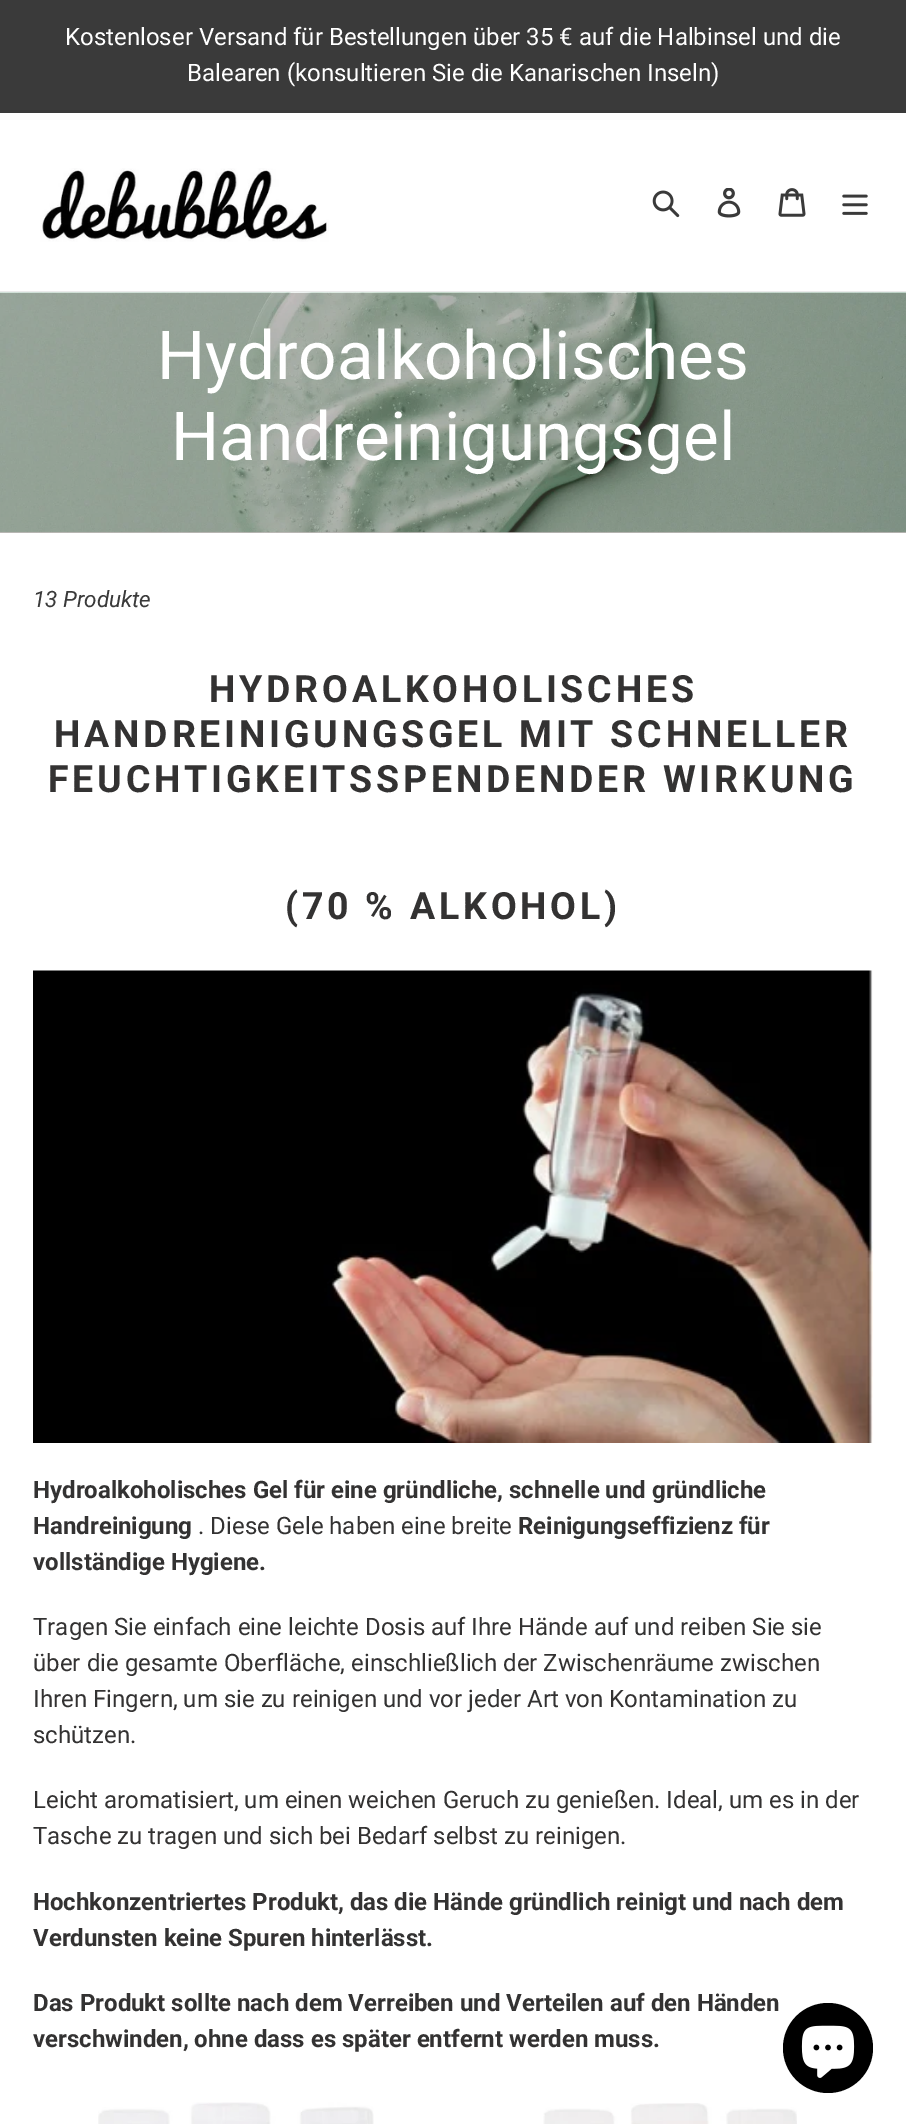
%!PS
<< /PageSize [906 2124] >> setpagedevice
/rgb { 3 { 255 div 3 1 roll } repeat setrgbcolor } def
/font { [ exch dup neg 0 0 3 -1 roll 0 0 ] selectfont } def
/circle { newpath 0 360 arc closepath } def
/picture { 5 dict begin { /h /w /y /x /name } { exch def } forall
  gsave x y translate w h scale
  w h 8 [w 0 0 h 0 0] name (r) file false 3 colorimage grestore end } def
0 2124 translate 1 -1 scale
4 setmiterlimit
255 255 255 rgb
0 0 906 2124 rectfill
[
  [0 532 906 1 195 188 188]
  [0 0 906 113 58 58 58]
  [0 291 906 2 235 235 235]
] { aload pop rgb rectfill } forall
(img/1.rgb) 40 168 289 74 picture
(img/2.rgb) 652 190 28 28 picture
(img/3.rgb) 717 188 24 30 picture
(img/4.rgb) 778 188 28 29 picture
(img/5.rgb) 842 194 26 21 picture
(img/6.rgb) 0 292 906 241 picture
(img/7.rgb) 33 970 840 473 picture
(img/8.rgb) 98 2102 276 22 picture
(img/9.rgb) 543 2103 254 21 picture
0 0 0 rgb
828 2048 45 circle fill
(img/10.rgb) 801 2025 54 53 picture
/Roboto-Regular 24 font
255 255 255 rgb
65 45 moveto (Kostenloser Versand für Bestellungen über 35 € auf die Halbinsel und die) show
187 81 moveto (Balearen \(konsultieren Sie die Kanarischen Inseln\)) show
/Roboto-Regular 67.5 font
157 379 moveto (Hydroalkoholisches) show
171 460 moveto (Handreinigungsgel) show
/Roboto-Italic 22.5 font
58 58 58 rgb
33 607 moveto (13 Produkte) show
/Roboto-Bold 37.5 font
51 50 50 rgb
209 702 moveto 3.75 0 (HYDROALKOHOLISCHES) ashow
54 747 moveto 3.75 0 (HANDREINIGUNGSGEL MIT SCHNELLER) ashow
48 792 moveto 3.75 0 (FEUCHTIGKEITSSPENDENDER WIRKUNG) ashow
285 919 moveto 3.75 0 (\(70 % ALKOHOL\)) ashow
/Roboto-Bold 24 font
33 1498 moveto (Hydroalkoholisches Gel für eine gründliche, schnelle und gründliche) show
33 1534 moveto (Handreinigung) show
/Roboto-Regular 24 font
198 1534 moveto (. Diese Gele haben eine breite) show
/Roboto-Bold 24 font
518 1534 moveto (Reinigungseffizienz für) show
33 1570 moveto (vollständige Hygiene.) show
/Roboto-Regular 24 font
[
  [(Tragen Sie einfach eine leichte Dosis auf Ihre Hände auf und reiben Sie sie) 33 1635]
  [(über die gesamte Oberfläche, einschließlich der Zwischenräume zwischen) 33 1671]
  [(Ihren Fingern, um sie zu reinigen und vor jeder Art von Kontamination zu) 33 1707]
  [(schützen.) 33 1743]
  [(Leicht aromatisiert, um einen weichen Geruch zu genießen. Ideal, um es in der) 33 1808]
  [(Tasche zu tragen und sich bei Bedarf selbst zu reinigen.) 33 1844]
] { aload pop moveto show } forall
/Roboto-Bold 24 font
[
  [(Hochkonzentriertes Produkt, das die Hände gründlich reinigt und nach dem) 33 1910]
  [(Verdunsten keine Spuren hinterlässt.) 33 1946]
  [(Das Produkt sollte nach dem Verreiben und Verteilen auf den Händen) 33 2011]
  [(verschwinden, ohne dass es später entfernt werden muss.) 33 2047]
] { aload pop moveto show } forall
showpage
